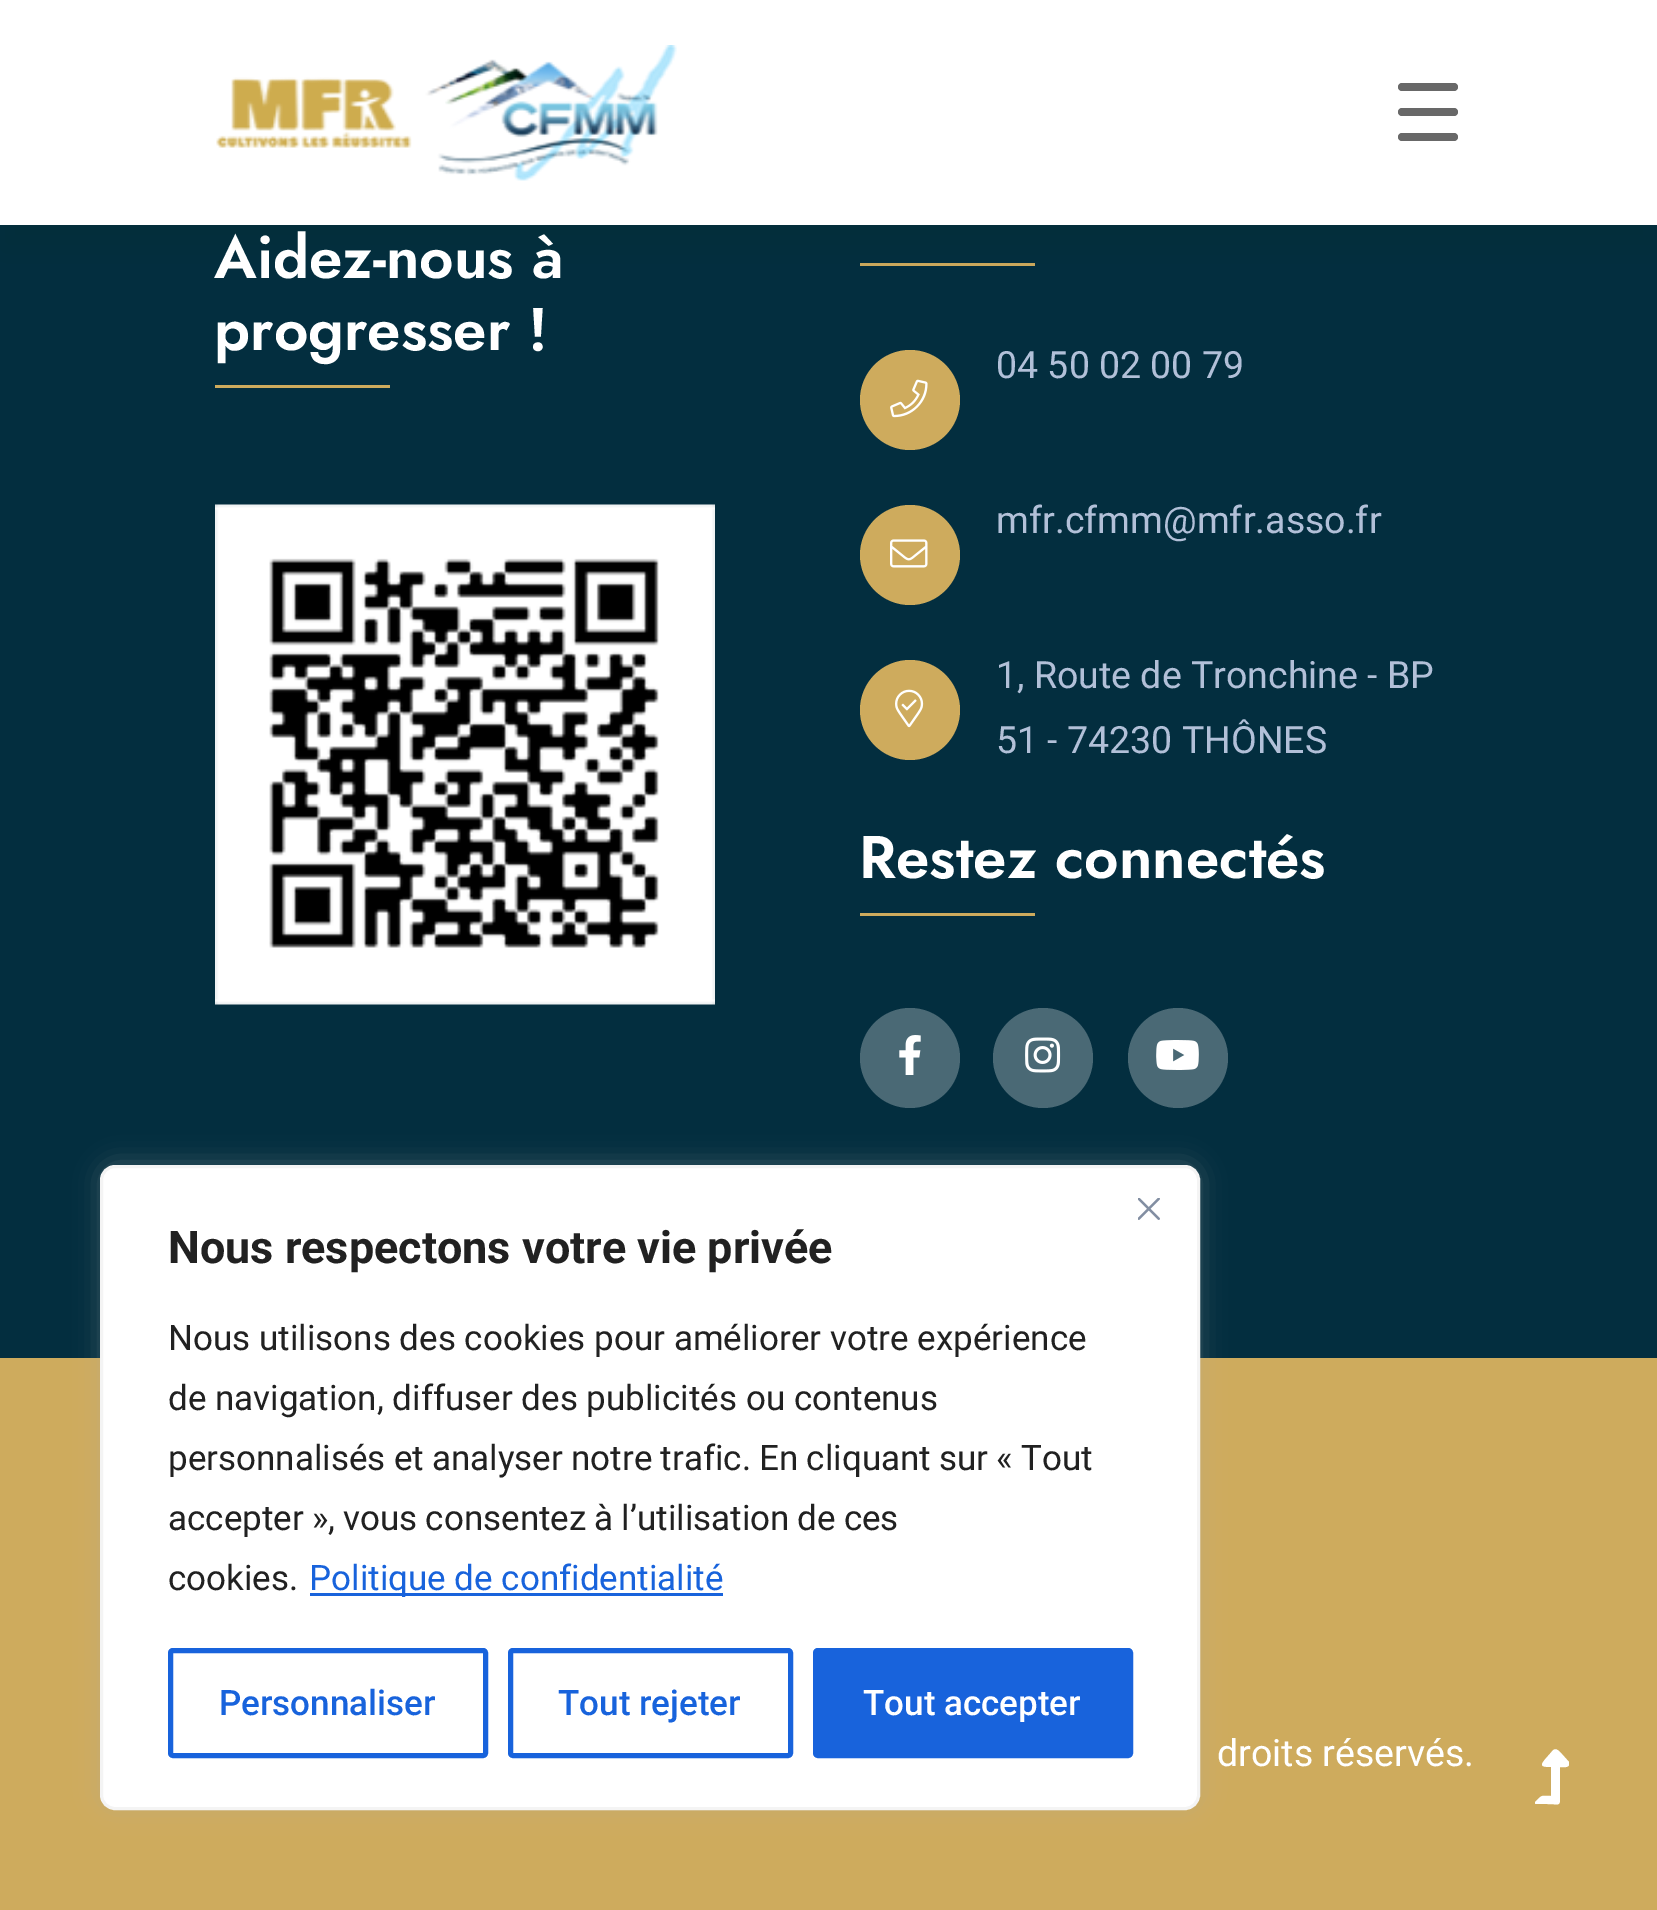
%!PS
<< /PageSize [1657 1910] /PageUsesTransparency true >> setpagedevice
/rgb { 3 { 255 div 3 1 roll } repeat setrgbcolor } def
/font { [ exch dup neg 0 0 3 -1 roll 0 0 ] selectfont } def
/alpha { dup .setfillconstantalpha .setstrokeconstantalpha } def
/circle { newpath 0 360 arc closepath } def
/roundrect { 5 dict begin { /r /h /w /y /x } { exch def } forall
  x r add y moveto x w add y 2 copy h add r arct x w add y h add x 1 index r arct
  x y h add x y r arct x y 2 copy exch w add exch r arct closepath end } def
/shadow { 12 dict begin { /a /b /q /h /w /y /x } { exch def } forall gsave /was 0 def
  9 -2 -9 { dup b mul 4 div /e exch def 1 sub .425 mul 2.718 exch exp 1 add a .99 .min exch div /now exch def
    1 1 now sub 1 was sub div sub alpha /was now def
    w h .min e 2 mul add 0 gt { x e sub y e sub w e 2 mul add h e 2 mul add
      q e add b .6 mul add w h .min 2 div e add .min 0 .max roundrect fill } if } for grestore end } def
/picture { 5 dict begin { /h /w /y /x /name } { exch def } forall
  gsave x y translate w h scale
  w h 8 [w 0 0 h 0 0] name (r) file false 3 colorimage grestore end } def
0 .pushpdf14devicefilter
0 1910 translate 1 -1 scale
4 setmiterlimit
3 46 63 rgb
0 0 1657 1910 rectfill
206 171 93 rgb
860 263 175 3 rectfill
25 25 25 rgb
0 25 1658 225 0 19 0.1 shadow
255 255 255 rgb
0 0 1657 225 rectfill
(img/1.rgb) 216 45 461 136 picture
104 104 104 rgb
1398 108 60 8 4 roundrect fill
1398 83 60 8 4 roundrect fill
1398 133 60 8 4 roundrect fill
206 171 93 rgb
215 385 175 3 rectfill
(img/2.rgb) 215 504 500 501 picture
910 400 50 circle fill
(img/3.rgb) 890 379 38 39 picture
910 555 50 circle fill
(img/4.rgb) 890 539 38 29 picture
910 710 50 circle fill
(img/5.rgb) 895 689 29 39 picture
860 913 175 3 rectfill
74 105 117 rgb
910 1058 50 circle fill
(img/6.rgb) 899 1035 22 40 picture
1043 1058 50 circle fill
(img/7.rgb) 1025 1037 36 36 picture
1178 1058 50 circle fill
(img/8.rgb) 1156 1040 43 30 picture
206 171 93 rgb
0 1358 1657 552 rectfill
172 171 171 rgb
100 1163 1100 645 15 12.5 0.3 shadow
255 255 255 rgb
101.5 1166.5 1097 642 13.5 roundrect gsave fill grestore
244 244 244 rgb
3 setlinewidth
stroke
(img/9.rgb) 1138 1198 22 22 picture
24 99 220 rgb
310 1593 413 3 rectfill
5 setlinewidth
170.5 1650.5 315 105 2.5 roundrect stroke
510.5 1650.5 280 105 2.5 roundrect stroke
815.5 1650.5 315 105 2.5 roundrect gsave fill grestore
stroke
255 255 255 rgb
1569 1762 moveto 1569 1765 lineto 1568 1768 1562 1767 1560 1767 curveto 1560 1796 lineto 1560 1807 1560 1804 1547 1804 curveto 1536 1804 lineto 1535 1804 1535 1803 1535 1802 curveto 1543 1794 1541 1796 1551 1796 curveto 1551 1767 lineto 1539 1767 1540 1765 1548 1756 curveto 1553 1751 1554 1746 1560 1752 curveto closepath fill
/Jost-SemiBold 60 font
214 278 moveto (Aidez-nous à) show
214 350 moveto (progresser !) show
/Roboto-Regular 37.5 font
178 192 216 rgb
[
  [(04 50 02 00 79) 996 378]
  [(mfr.cfmm@mfr.asso.fr) 996 533]
  [(1, Route de Tronchine - BP) 996 688]
  [(51 - 74230 THÔNES) 996 753]
] { aload pop moveto show } forall
/Jost-SemiBold 60 font
255 255 255 rgb
859 878 moveto (Restez connectés) show
/Roboto-Regular 37.5 font
1217 1766 moveto (droits réservés.) show
/Roboto-Bold 45 font
33 33 33 rgb
168 1263 moveto (Nous respectons votre vie privée) show
/Roboto-Regular 35 font
168 1350 moveto (Nous utilisons des cookies pour améliorer votre expérience) show
168 1410 moveto (de navigation, diffuser des publicités ou contenus) show
168 1470 moveto -0.5 0 32 (personnalisés et analyser notre trafic. En cliquant sur «) widthshow
1021 1470 moveto (Tout) show
168 1530 moveto (accepter) show
312 1530 moveto -0.75 0 32 (», vous consentez à l’utilisation de ces) widthshow
168 1590 moveto (cookies.) show
24 99 220 rgb
309 1590 moveto (Politique de confidentialité) show
/Roboto-Medium 35 font
219 1715 moveto (Personnaliser) show
558 1715 moveto (Tout rejeter) show
255 255 255 rgb
863 1715 moveto (Tout accepter) show
.poppdf14devicefilter showpage
